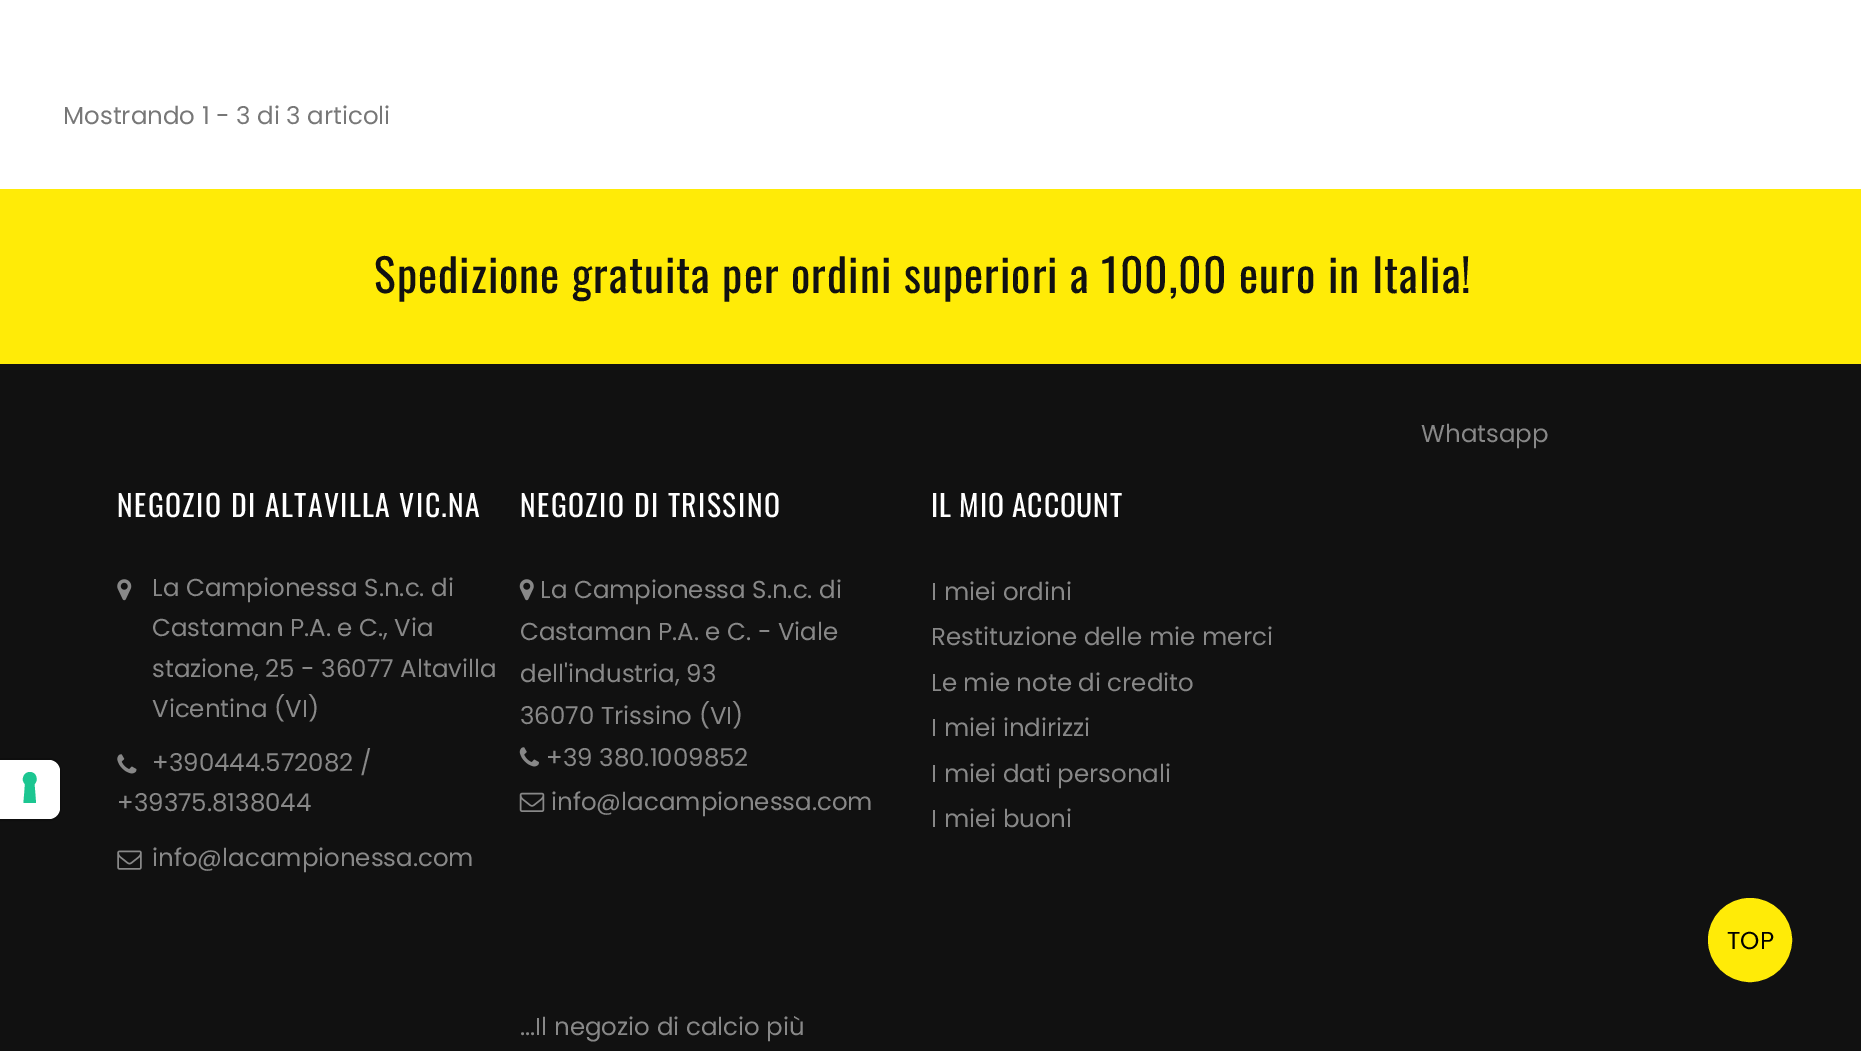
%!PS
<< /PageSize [1861 1051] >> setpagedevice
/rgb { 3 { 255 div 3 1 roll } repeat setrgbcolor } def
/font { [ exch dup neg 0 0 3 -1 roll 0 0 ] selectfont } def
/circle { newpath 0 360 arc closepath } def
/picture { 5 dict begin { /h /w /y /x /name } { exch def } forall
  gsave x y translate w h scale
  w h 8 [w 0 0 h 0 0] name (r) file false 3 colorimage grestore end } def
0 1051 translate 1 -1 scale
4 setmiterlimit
255 255 255 rgb
0 0 1861 1051 rectfill
17 17 17 rgb
0 364 1861 687 rectfill
14 14 14 rgb
2 setlinewidth
-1 759 moveto 49 759 lineto 55 759 60 764 60 770 curveto 60 809 lineto 60 815 55 820 49 820 curveto -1 820 lineto closepath stroke
255 255 255 rgb
0 760 moveto 49 760 lineto 55 760 60 765 60 771 curveto 60 808 lineto 60 814 55 819 49 819 curveto 0 819 lineto closepath fill
28 198 145 rgb
30 772 moveto 36 772 39 780 34.5 784 curveto 36 803 lineto 23.5 803 lineto 25 784 lineto 20.5 780 23.5 772 30 772 curveto closepath eofill
255 235 7 rgb
0 189 1861 175 rectfill
(img/1.rgb) 117 579 15 22 picture
(img/2.rgb) 117 754 20 20 picture
(img/3.rgb) 117 850 25 20 picture
(img/4.rgb) 519 579 15 22 picture
(img/5.rgb) 519 747 20 20 picture
(img/6.rgb) 519 792 26 20 picture
1750 940 40 circle gsave fill grestore
4 setlinewidth
stroke
/Poppins-Regular 24.5 font
119 119 119 rgb
63 124 moveto (Mostrando 1 - 3 di 3 articoli) show
/Oswald-Regular 45.5 font
17 17 17 rgb
374 293 moveto 1.05 0 (Spedizione gratuita per ordini superiori a 100,00 euro in Italia!) ashow
/Poppins-Regular 24.5 font
136 136 136 rgb
1421 442 moveto (Whatsapp) show
/Oswald-Regular 29.75 font
255 255 255 rgb
117 517 moveto 1.4 0 (NEGOZIO DI ALTAVILLA VIC.NA) ashow
/Poppins-Regular 24.5 font
136 136 136 rgb
[
  [(La Campionessa S.n.c. di) 152 596]
  [(Castaman P.A. e C., Via) 152 636]
  [(stazione, 25 - 36077 Altavilla) 152 677]
  [(Vicentina \(VI\)) 152 717]
  [(+390444.572082 /) 152 771]
  [(+39375.8138044) 117 811]
  [(info@lacampionessa.com) 152 866]
] { aload pop moveto show } forall
/Oswald-Regular 29.75 font
255 255 255 rgb
520 517 moveto 1.4 0 (NEGOZIO DI TRISSINO) ashow
/Poppins-Regular 24.5 font
136 136 136 rgb
[
  [(La Campionessa S.n.c. di) 540 598]
  [(Castaman P.A. e C. - Viale) 520 640]
  [(dell'industria, 93) 520 682]
  [(36070 Trissino \(VI\)) 520 724]
  [(+39 380.1009852) 546 766]
  [(info@lacampionessa.com) 551 810]
  [(...Il negozio di calcio più) 520 1035]
] { aload pop moveto show } forall
/Oswald-Regular 29.75 font
255 255 255 rgb
931 517 moveto 0.75 0 (IL MIO ACCOUNT) ashow
/Poppins-Regular 24.5 font
136 136 136 rgb
[
  [(I miei ordini) 931 600]
  [(Restituzione delle mie merci) 931 645]
  [(Le mie note di credito) 931 691]
  [(I miei indirizzi) 931 736]
  [(I miei dati personali) 931 782]
  [(I miei buoni) 931 827]
] { aload pop moveto show } forall
0 0 0 rgb
1727 949 moveto (TOP) show
showpage
